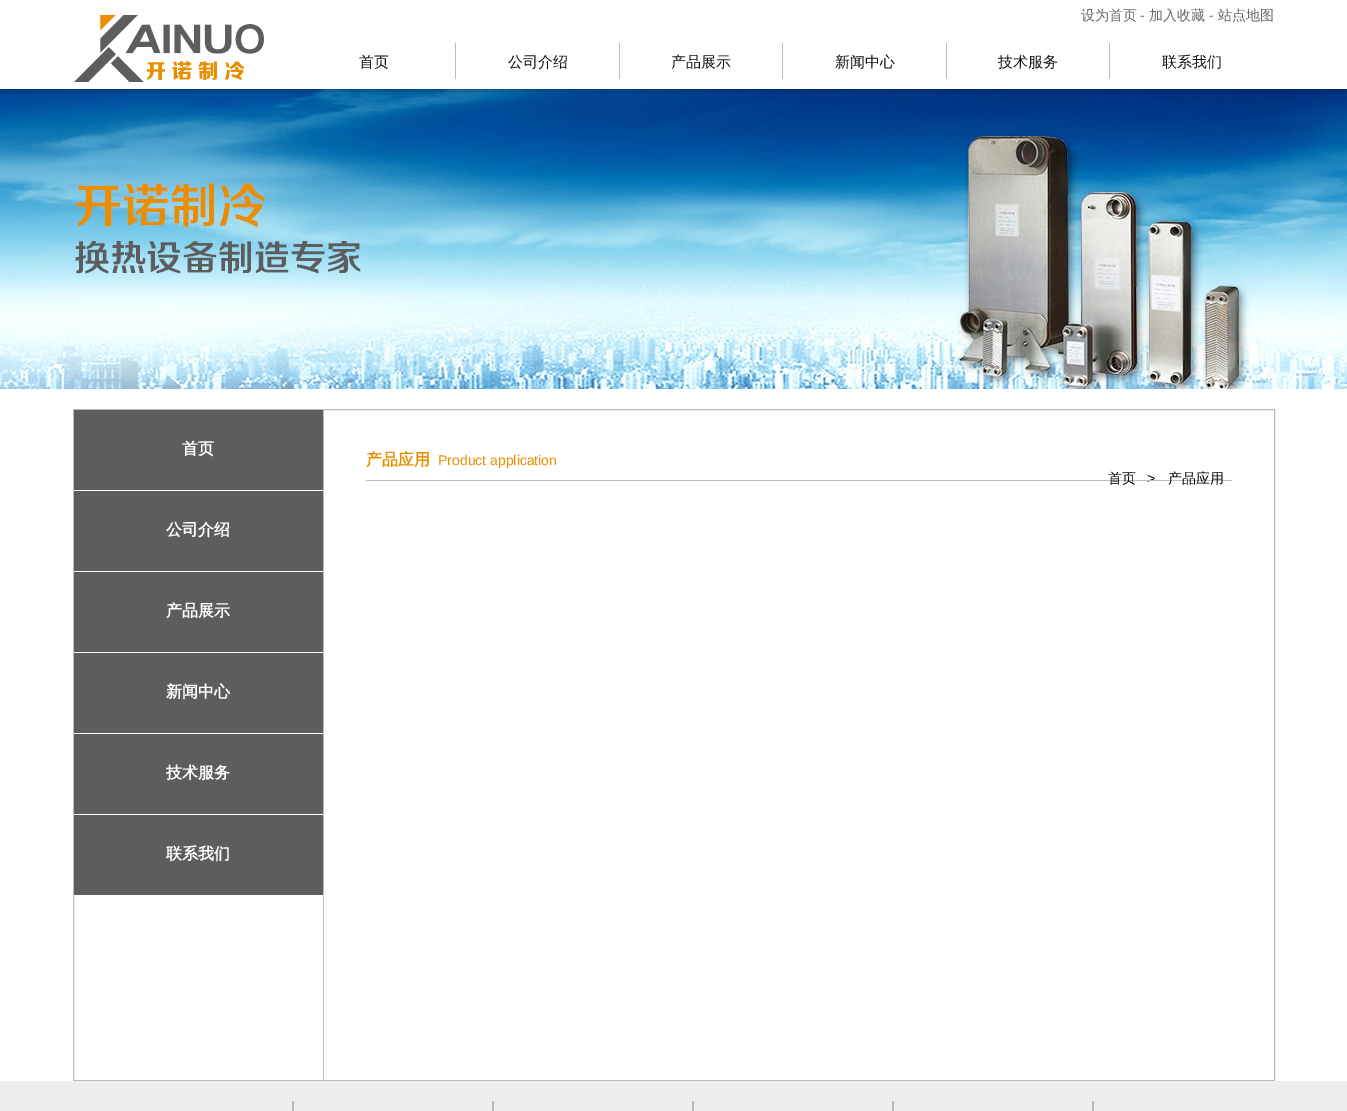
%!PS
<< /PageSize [1347 1111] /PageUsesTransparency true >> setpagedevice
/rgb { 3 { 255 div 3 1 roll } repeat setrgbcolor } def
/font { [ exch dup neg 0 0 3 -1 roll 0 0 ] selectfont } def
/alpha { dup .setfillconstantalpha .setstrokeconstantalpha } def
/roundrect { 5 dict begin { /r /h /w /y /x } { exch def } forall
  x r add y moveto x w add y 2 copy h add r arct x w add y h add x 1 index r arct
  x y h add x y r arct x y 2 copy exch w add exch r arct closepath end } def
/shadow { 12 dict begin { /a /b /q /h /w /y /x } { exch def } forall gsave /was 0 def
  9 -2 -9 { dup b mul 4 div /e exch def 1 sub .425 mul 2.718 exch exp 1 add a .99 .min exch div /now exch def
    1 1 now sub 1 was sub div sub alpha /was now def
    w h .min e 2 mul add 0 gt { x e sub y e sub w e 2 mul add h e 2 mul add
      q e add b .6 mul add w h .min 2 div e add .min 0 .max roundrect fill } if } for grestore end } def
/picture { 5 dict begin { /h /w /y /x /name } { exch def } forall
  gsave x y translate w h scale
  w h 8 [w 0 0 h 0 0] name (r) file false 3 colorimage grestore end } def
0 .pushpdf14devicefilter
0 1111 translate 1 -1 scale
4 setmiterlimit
255 255 255 rgb
0 0 1347 1111 rectfill
(img/2.rgb) 0 89 1347 300 picture
gsave
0 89 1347 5 rectclip
0 0 0 rgb
0 2 1347 89 0 2.5 0.2 shadow
grestore
(img/1.rgb) 74 15 190 67 picture
[
  [455 43 1 36 187 187 187]
  [619 43 1 36 187 187 187]
  [782 43 1 36 187 187 187]
  [946 43 1 36 187 187 187]
  [1109 43 1 36 187 187 187]
] { aload pop rgb rectfill } forall
73.5 409.5 1201 671 rectstroke
[
  [74 410 249 80 93 93 93]
  [74 491 249 80 93 93 93]
  [74 572 249 80 93 93 93]
  [74 653 249 80 93 93 93]
  [74 734 249 80 93 93 93]
  [74 815 249 80 93 93 93]
  [323 410 1 670 187 187 187]
  [0 1081 1347 30 238 238 238]
  [292 1101 2 10 187 187 187]
  [492 1101 2 10 187 187 187]
  [692 1101 2 10 187 187 187]
  [892 1101 2 10 187 187 187]
  [1092 1101 2 10 187 187 187]
] { aload pop rgb rectfill } forall
/WenQuanYiZenHei-Medium 14 font
102 102 102 rgb
1081 20 moveto (设为首页) show
/LiberationSans-Regular 14 font
1140 20 moveto (-) show
/WenQuanYiZenHei-Medium 14 font
1149 20 moveto (加入收藏) show
/LiberationSans-Regular 14 font
1209 20 moveto (-) show
/WenQuanYiZenHei-Medium 14 font
1218 20 moveto (站点地图) show
/WenQuanYiZenHei-Medium 15 font
17 17 17 rgb
[
  [(首页) 359 67]
  [(公司介绍) 508 67]
  [(产品展示) 671 67]
  [(新闻中心) 835 67]
  [(技术服务) 998 67]
  [(联系我们) 1162 67]
] { aload pop moveto show } forall
/WenQuanYiZenHei-Bold 16 font
255 255 255 rgb
[
  [(首页) 182 454]
  [(公司介绍) 166 535]
  [(产品展示) 166 616]
  [(新闻中心) 166 697]
  [(技术服务) 166 778]
  [(联系我们) 166 859]
] { aload pop moveto show } forall
232 142 0 rgb
366 465 moveto (产品应用) show
/LiberationSans-Regular 14 font
438 465 moveto (Product application) show
0 0 0 rgb
1147 483 moveto (>) show
187 187 187 rgb
366 480 866 1 rectfill
/WenQuanYiZenHei-Medium 14 font
0 0 0 rgb
1108 483 moveto (首页) show
1168 483 moveto (产品应用) show
.poppdf14devicefilter showpage
